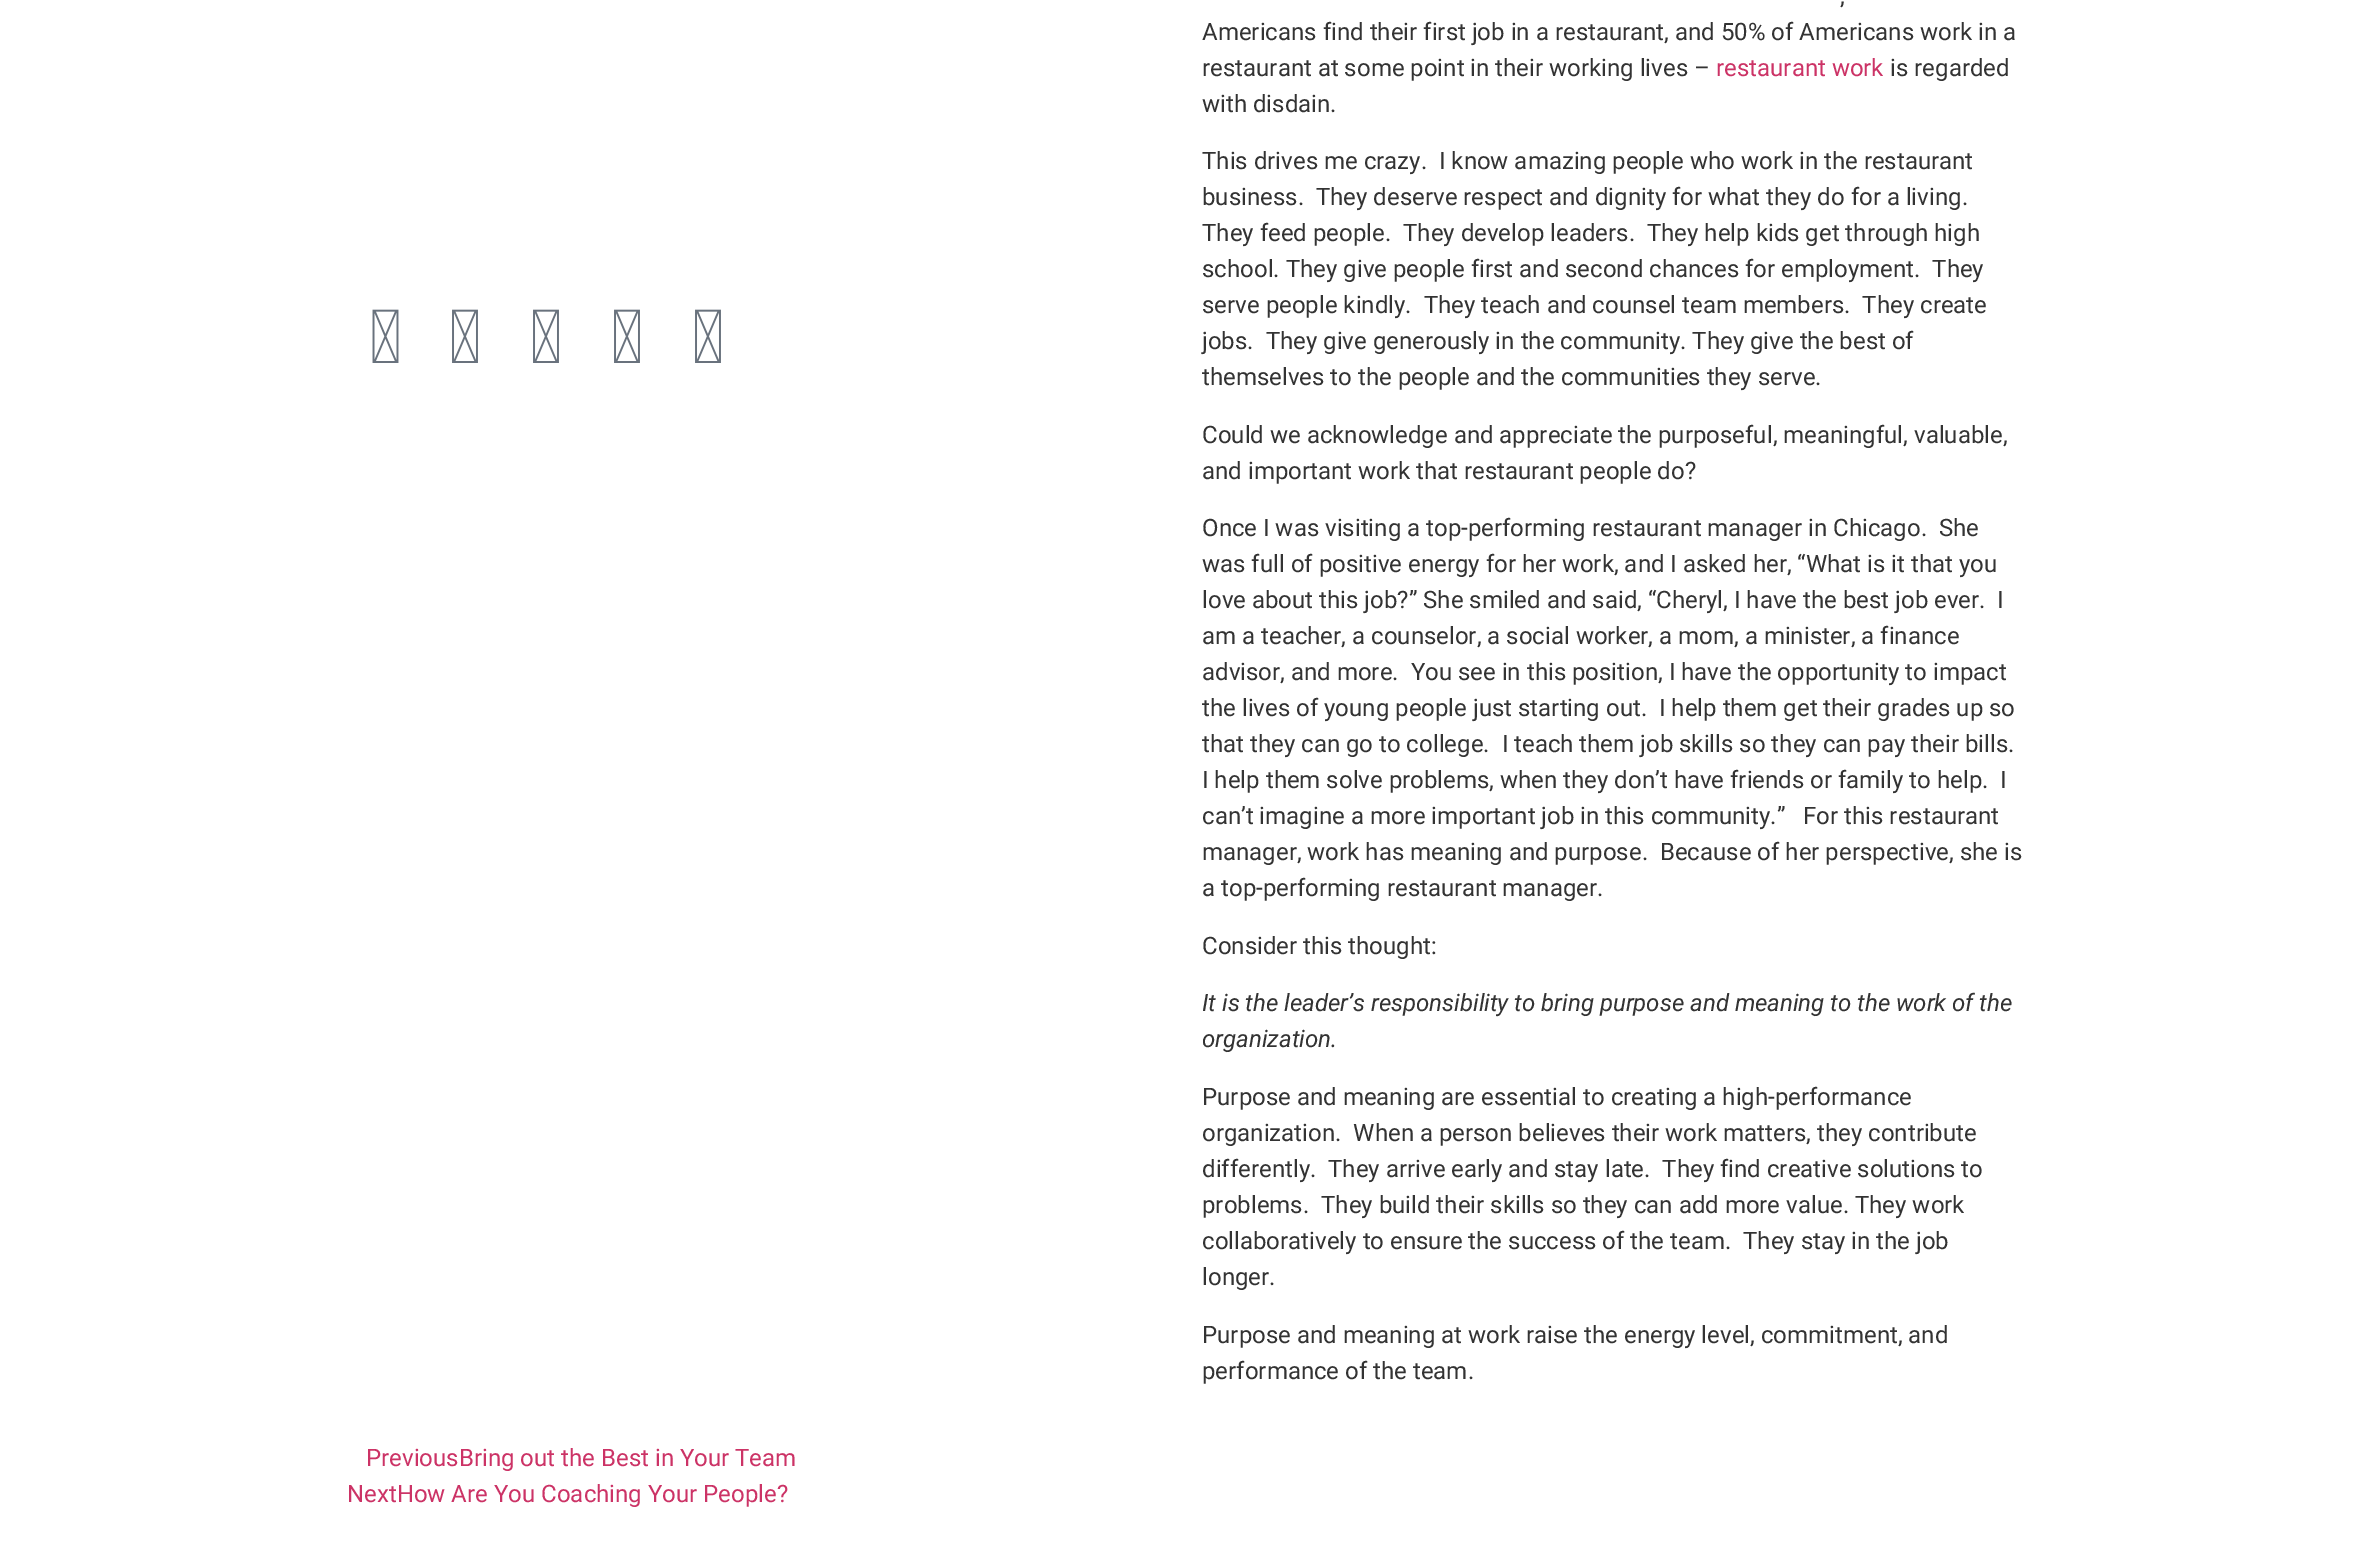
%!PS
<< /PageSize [2374 1564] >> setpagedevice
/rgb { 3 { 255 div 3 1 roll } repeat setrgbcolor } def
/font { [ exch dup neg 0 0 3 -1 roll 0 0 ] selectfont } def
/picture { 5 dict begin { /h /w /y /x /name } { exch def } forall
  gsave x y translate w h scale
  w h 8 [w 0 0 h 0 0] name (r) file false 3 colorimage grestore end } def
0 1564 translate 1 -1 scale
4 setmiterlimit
255 255 255 rgb
0 0 2374 1564 rectfill
(img/1.rgb) 372 309 27 54 picture
(img/2.rgb) 452 309 26 54 picture
(img/2.rgb) 533 309 26 54 picture
(img/2.rgb) 614 309 26 54 picture
(img/2.rgb) 695 309 26 54 picture
/Roboto-Regular 24 font
51 51 51 rgb
[
  [(,) 1840 4]
  [(Americans find their first job in a restaurant, and 50% of Americans work in a) 1202 40]
  [(restaurant at some point in their working lives –) 1202 76]
] { aload pop moveto show } forall
204 51 102 rgb
1716 76 moveto (restaurant work) show
51 51 51 rgb
[
  [(is regarded) 1890 76]
  [(with disdain.) 1202 112]
  [(This drives me crazy.  I know amazing people who work in the restaurant) 1202 169]
  [(business.  They deserve respect and dignity for what they do for a living.) 1202 205]
  [(They feed people.  They develop leaders.  They help kids get through high) 1202 241]
  [(school. They give people first and second chances for employment.  They) 1202 277]
  [(serve people kindly.  They teach and counsel team members.  They create) 1202 313]
  [(jobs.  They give generously in the community. They give the best of) 1202 349]
  [(themselves to the people and the communities they serve.) 1202 385]
  [(Could we acknowledge and appreciate the purposeful, meaningful, valuable,) 1202 443]
  [(and important work that restaurant people do?) 1202 479]
  [(Once I was visiting a top-performing restaurant manager in Chicago.  She) 1202 536]
  [(was full of positive energy for her work, and I asked her, “What is it that you) 1202 572]
  [(love about this job?” She smiled and said, “Cheryl, I have the best job ever.  I) 1202 608]
  [(am a teacher, a counselor, a social worker, a mom, a minister, a finance) 1202 644]
  [(advisor, and more.  You see in this position, I have the opportunity to impact) 1202 680]
  [(the lives of young people just starting out.  I help them get their grades up so) 1202 716]
  [(that they can go to college.  I teach them job skills so they can pay their bills.) 1202 752]
  [(I help them solve problems, when they don’t have friends or family to help.  I) 1202 788]
  [(can’t imagine a more important job in this community.”   For this restaurant) 1202 824]
  [(manager, work has meaning and purpose.  Because of her perspective, she is) 1202 860]
  [(a top-performing restaurant manager.) 1202 896]
  [(Consider this thought:) 1202 954]
] { aload pop moveto show } forall
/Roboto-Italic 24 font
1202 1011 moveto (It is the leader’s responsibility to bring purpose and meaning to the work of the) show
1202 1047 moveto (organization.) show
/Roboto-Regular 24 font
[
  [(Purpose and meaning are essential to creating a high-performance) 1202 1105]
  [(organization.  When a person believes their work matters, they contribute) 1202 1141]
  [(differently.  They arrive early and stay late.  They find creative solutions to) 1202 1177]
  [(problems.  They build their skills so they can add more value. They work) 1202 1213]
  [(collaboratively to ensure the success of the team.  They stay in the job) 1202 1249]
  [(longer.) 1202 1285]
  [(Purpose and meaning at work raise the energy level, commitment, and) 1202 1343]
  [(performance of the team.) 1202 1379]
] { aload pop moveto show } forall
204 51 102 rgb
366 1466 moveto (PreviousBring out the Best in Your Team) show
347 1502 moveto (NextHow Are You Coaching Your People?) show
showpage
